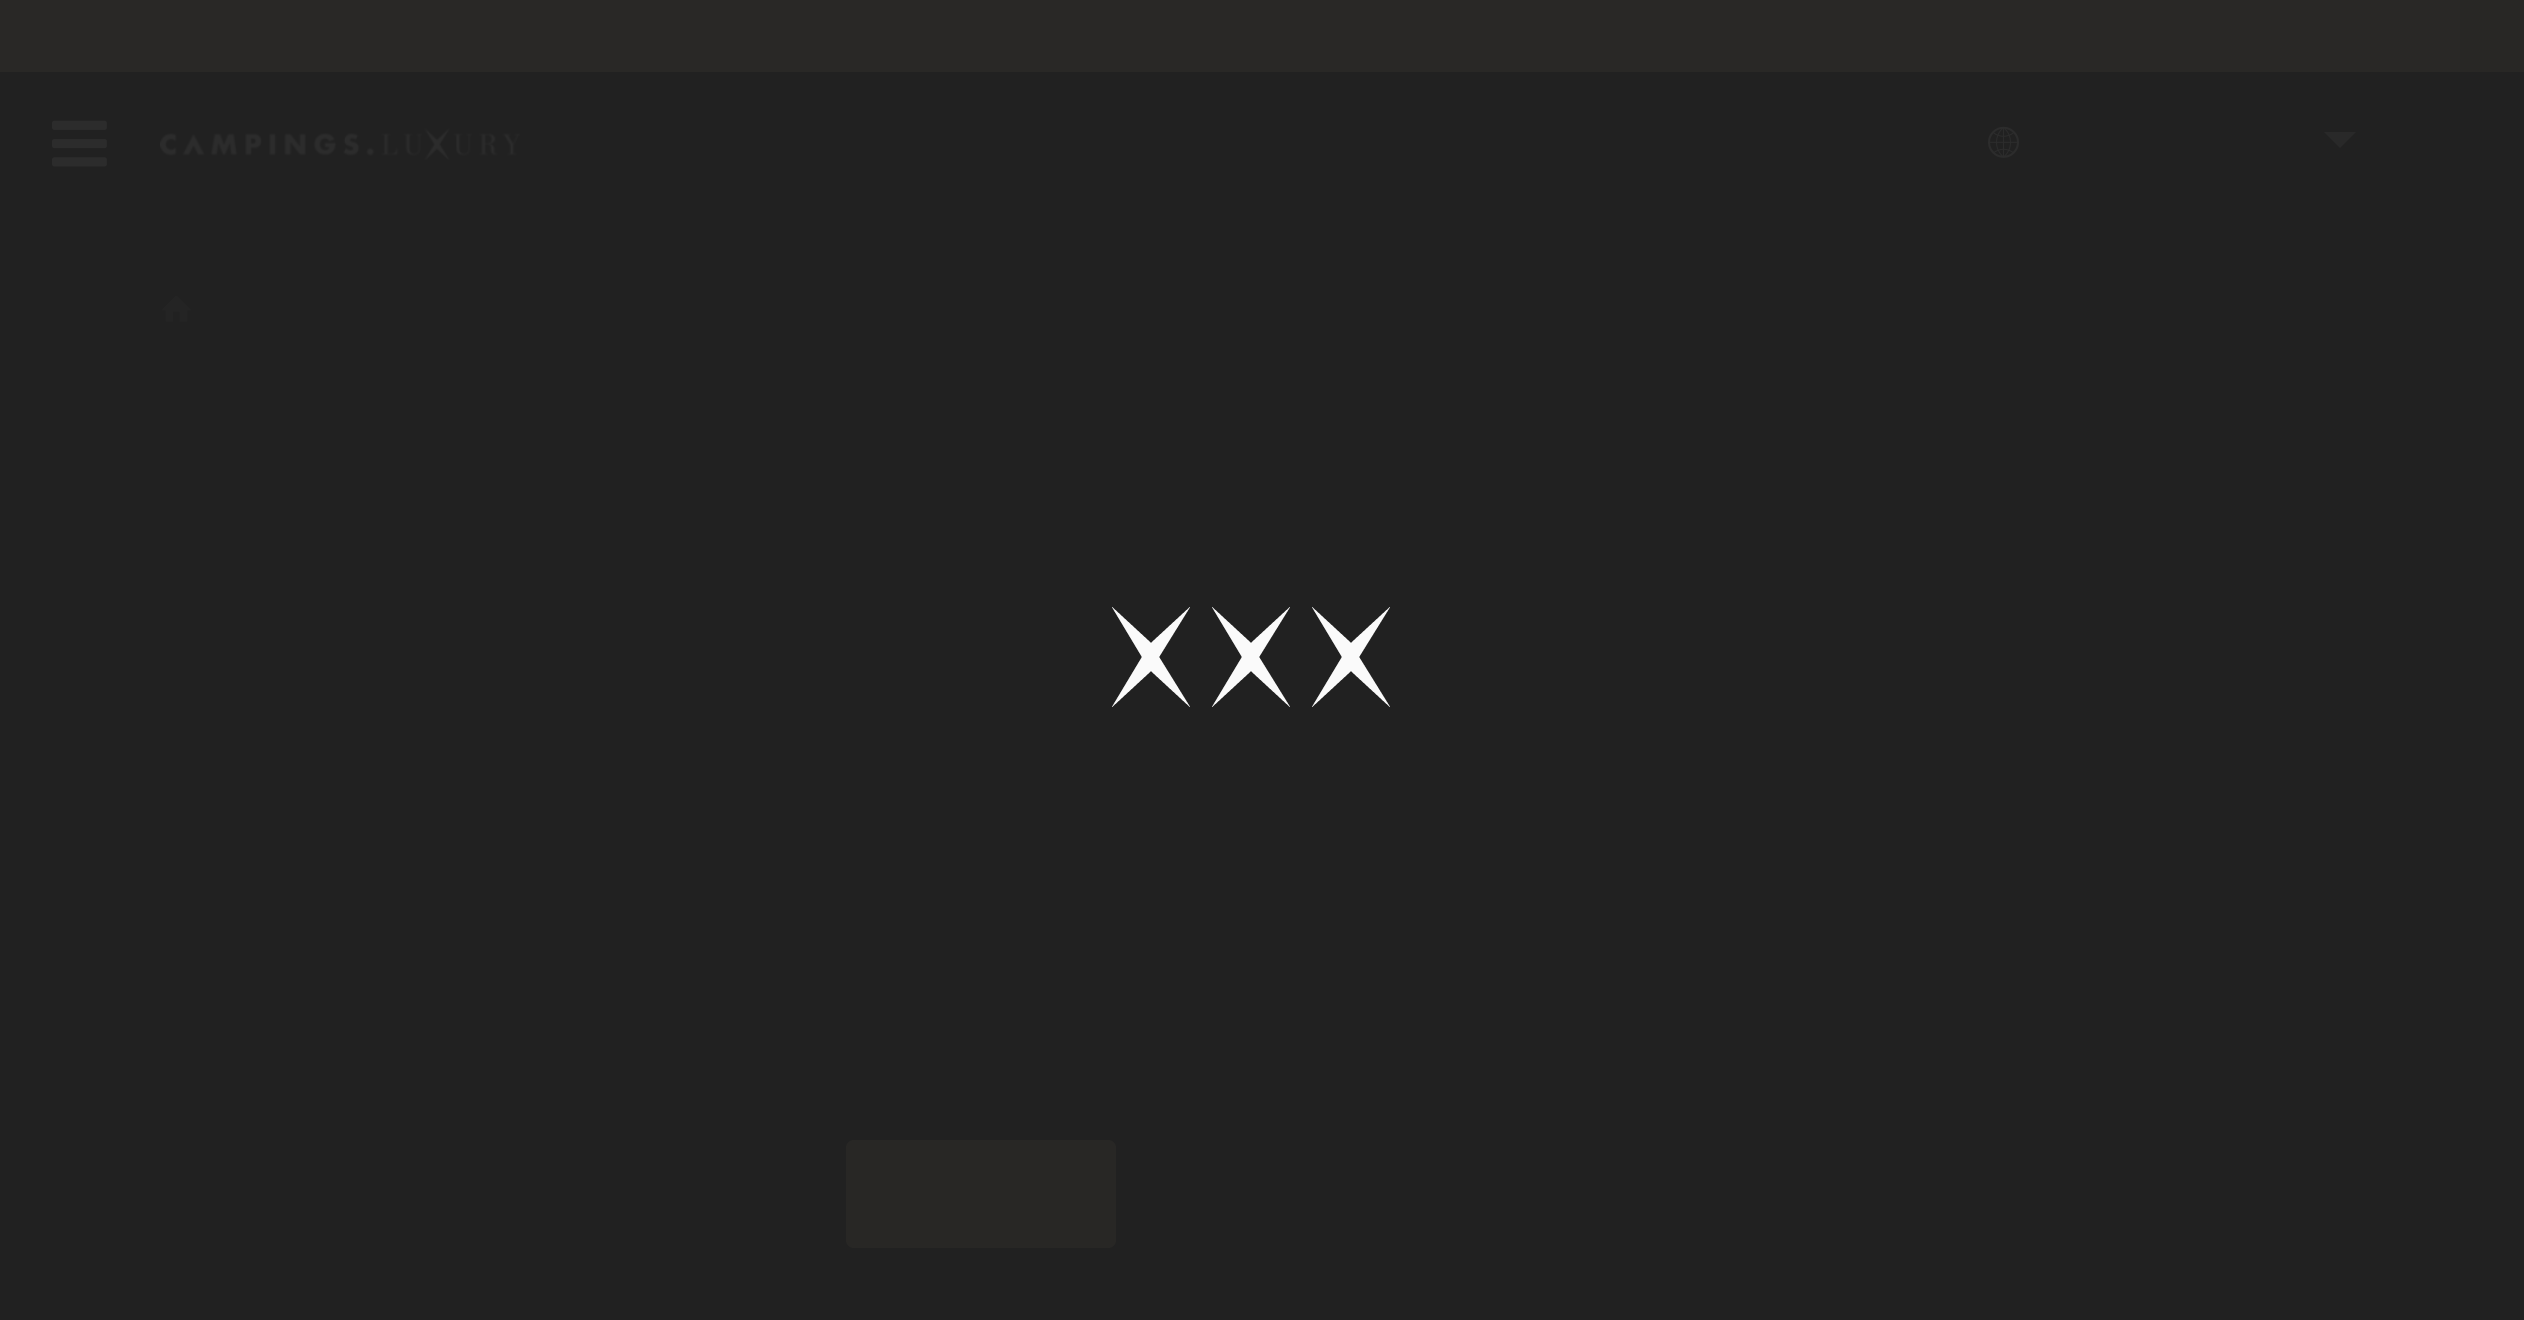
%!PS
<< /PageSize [2524 1320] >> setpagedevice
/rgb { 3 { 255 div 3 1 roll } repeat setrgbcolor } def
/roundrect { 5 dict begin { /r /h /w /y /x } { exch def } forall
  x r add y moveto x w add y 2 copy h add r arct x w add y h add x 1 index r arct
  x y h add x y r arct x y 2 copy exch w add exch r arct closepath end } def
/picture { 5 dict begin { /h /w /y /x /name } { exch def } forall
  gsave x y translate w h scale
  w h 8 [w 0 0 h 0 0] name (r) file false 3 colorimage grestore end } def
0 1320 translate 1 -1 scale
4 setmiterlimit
33 33 33 rgb
0 0 2524 1320 rectfill
41 40 38 rgb
0 0 2460 72 rectfill
40 39 37 rgb
2460 0 64 72 rectfill
(img/1.rgb) 52 120 55 47 picture
(img/2.rgb) 160 127 360 33 picture
(img/3.rgb) 1988 126 31 32 picture
41 41 41 rgb
2324 132 moveto 2356 132 lineto 2340 148 lineto closepath fill
(img/4.rgb) 162 295 29 27 picture
40 39 37 rgb
846 1140 270 108 8 roundrect fill
250 250 250 rgb
1190 607 moveto 1151 643 lineto 1112 607 lineto 1142 657 lineto 1112 707 lineto 1151 671 lineto 1190 707 lineto 1159 657 lineto closepath fill
1290 607 moveto 1251 643 lineto 1212 607 lineto 1242 657 lineto 1212 707 lineto 1251 671 lineto 1290 707 lineto 1259 657 lineto closepath fill
1390 607 moveto 1351 643 lineto 1312 607 lineto 1342 657 lineto 1312 707 lineto 1351 671 lineto 1390 707 lineto 1359 657 lineto closepath fill
showpage
